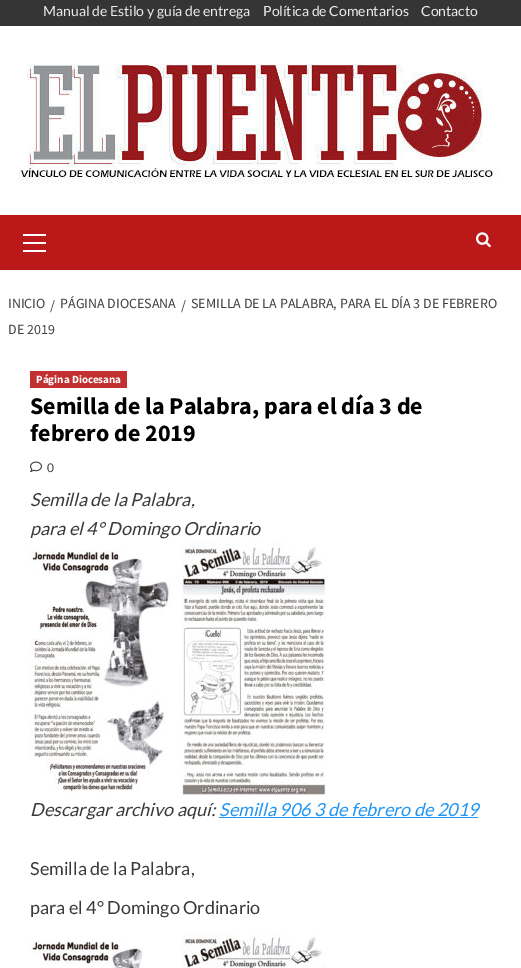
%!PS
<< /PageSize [521 968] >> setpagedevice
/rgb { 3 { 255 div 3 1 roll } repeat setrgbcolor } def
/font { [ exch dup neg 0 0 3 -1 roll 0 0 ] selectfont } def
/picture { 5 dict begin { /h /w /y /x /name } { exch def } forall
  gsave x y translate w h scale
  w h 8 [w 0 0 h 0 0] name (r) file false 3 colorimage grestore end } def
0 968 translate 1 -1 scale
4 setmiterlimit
255 255 255 rgb
0 0 521 968 rectfill
53 53 53 rgb
0 0 521 26 rectfill
(img/1.rgb) 19 64 479 120 picture
[
  [0 215 521 55 187 25 25]
  [23 242 23 2 255 255 255]
  [23 234 23 2 255 255 255]
  [23 250 23 2 255 255 255]
] { aload pop rgb rectfill } forall
(img/2.rgb) 476 232 15 16 picture
194 48 48 rgb
30 371 97 17 rectfill
(img/3.rgb) 30 461 12 11 picture
(img/4.rgb) 30 542 296 253 picture
33 150 243 rgb
219 817 259 1 rectfill
(img/5.rgb) 30 932 296 36 picture
/Lato-Regular 14 font
235 235 235 rgb
[
  [(Manual de Estilo y guía de entrega) 43 16]
  [(Política de Comentarios) 263 16]
  [(Contacto) 421 16]
] { aload pop moveto show } forall
/SourceSansPro-Regular 14 font
64 64 64 rgb
[
  [(/) 181 310]
  [(SEMILLA DE LA PALABRA, PARA EL DÍA 3 DE FEBRERO) 191 308]
  [(DE 2019) 8 334]
  [(INICIO) 8 308]
  [(/) 50 310]
  [(PÁGINA DIOCESANA) 60 308]
] { aload pop moveto show } forall
/SourceSansPro-Bold 11 font
255 255 255 rgb
36 383 moveto (Página Diocesana) show
/SourceSansPro-Bold 24 font
0 0 0 rgb
30 414 moveto (Semilla de la Palabra, para el día 3 de) show
30 441 moveto (febrero de 2019) show
/Lato-Regular 12 font
64 64 64 rgb
47 472 moveto (0) show
/Lato-Italic 18 font
58 58 58 rgb
[
  [(Semilla de la Palabra,) 30 506]
  [(para el 4° Domingo Ordinario) 30 535]
  [(Descargar archivo aquí:) 30 816]
] { aload pop moveto show } forall
33 150 243 rgb
219 816 moveto (Semilla 906 3 de febrero de 2019) show
/Lato-Regular 18 font
58 58 58 rgb
30 875 moveto (Semilla de la Palabra,) show
30 914 moveto (para el 4° Domingo Ordinario) show
showpage
